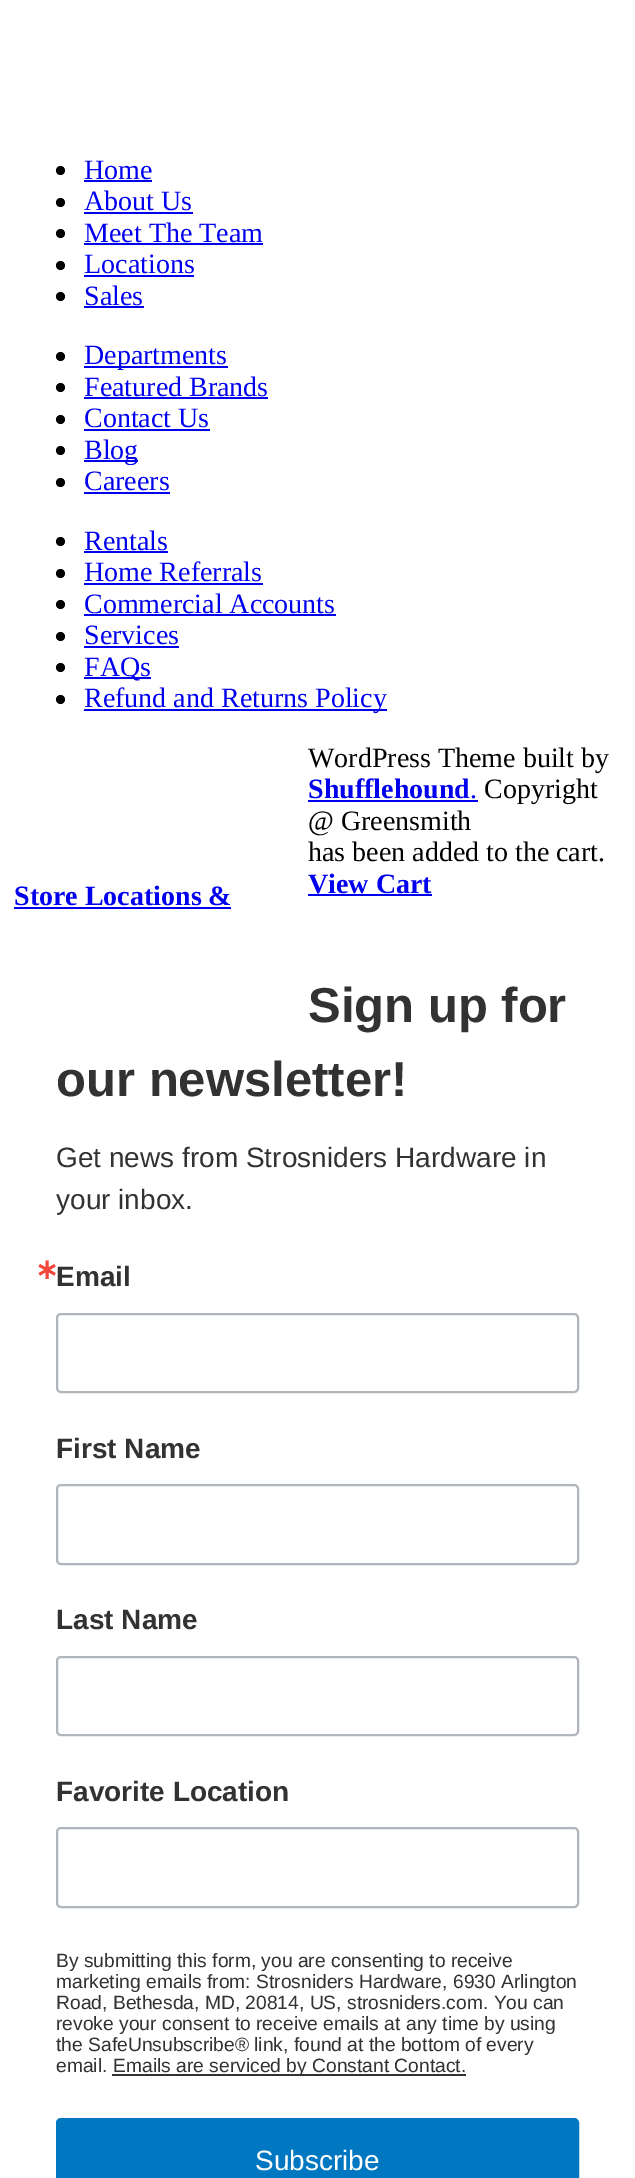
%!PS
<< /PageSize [635 2178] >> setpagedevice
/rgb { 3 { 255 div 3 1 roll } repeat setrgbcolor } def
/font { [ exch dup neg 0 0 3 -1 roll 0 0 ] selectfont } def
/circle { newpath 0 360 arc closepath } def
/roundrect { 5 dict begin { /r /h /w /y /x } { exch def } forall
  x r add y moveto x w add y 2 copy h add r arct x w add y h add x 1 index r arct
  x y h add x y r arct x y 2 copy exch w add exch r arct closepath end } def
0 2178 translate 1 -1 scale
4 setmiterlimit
255 255 255 rgb
0 0 635 2178 rectfill
0 0 0 rgb
60.5 170.5 4.5 circle fill
0 0 238 rgb
84 180 68 2 rectfill
0 0 0 rgb
60.5 202.5 4.5 circle fill
0 0 238 rgb
84 212 109 2 rectfill
0 0 0 rgb
60.5 233.5 4.5 circle fill
0 0 238 rgb
84 243 179 2 rectfill
0 0 0 rgb
60.5 265.5 4.5 circle fill
0 0 238 rgb
84 275 110 2 rectfill
0 0 0 rgb
60.5 296.5 4.5 circle fill
0 0 238 rgb
84 306 60 2 rectfill
0 0 0 rgb
60.5 356.5 4.5 circle fill
0 0 238 rgb
84 366 144 2 rectfill
0 0 0 rgb
60.5 387.5 4.5 circle fill
0 0 238 rgb
84 397 184 2 rectfill
0 0 0 rgb
60.5 419.5 4.5 circle fill
0 0 238 rgb
84 429 126 2 rectfill
0 0 0 rgb
60.5 450.5 4.5 circle fill
0 0 238 rgb
84 460 54 2 rectfill
0 0 0 rgb
60.5 482.5 4.5 circle fill
0 0 238 rgb
84 492 86 2 rectfill
0 0 0 rgb
60.5 541.5 4.5 circle fill
0 0 238 rgb
84 551 84 2 rectfill
0 0 0 rgb
60.5 573.5 4.5 circle fill
0 0 238 rgb
84 583 179 2 rectfill
0 0 0 rgb
60.5 604.5 4.5 circle fill
0 0 238 rgb
84 614 252 2 rectfill
0 0 0 rgb
60.5 636.5 4.5 circle fill
0 0 238 rgb
84 646 95 2 rectfill
0 0 0 rgb
60.5 667.5 4.5 circle fill
0 0 238 rgb
84 677 67 2 rectfill
0 0 0 rgb
60.5 699.5 4.5 circle fill
[
  [84 709 303 2 0 0 238]
  [14 907 217 2 0 0 238]
  [308 800 170 2 0 0 238]
  [308 894 124 2 0 0 238]
] { aload pop rgb rectfill } forall
176 182 187 rgb
2 setlinewidth
57 1314 521 78 4 roundrect stroke
57 1485 521 79 4 roundrect stroke
57 1657 521 78 4 roundrect stroke
57 1828 521 79 4 roundrect stroke
50 50 50 rgb
112 2074 354 2 rectfill
0 120 193 rgb
57 2119 521 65 4 roundrect gsave fill grestore
stroke
/LiberationSerif-Regular 28 font
0 0 238 rgb
[
  [(Home) 84 179]
  [(About Us) 84 210]
  [(Meet The Team) 84 242]
  [(Locations) 84 273]
  [(Sales) 84 305]
  [(Departments) 84 364]
  [(Featured Brands) 84 396]
  [(Contact Us) 84 427]
  [(Blog) 84 459]
  [(Careers) 84 490]
  [(Rentals) 84 550]
  [(Home Referrals) 84 581]
  [(Commercial Accounts) 84 613]
  [(Services) 84 644]
  [(FAQs) 84 676]
  [(Refund and Returns Policy) 84 707]
] { aload pop moveto show } forall
/LiberationSerif-Bold 28 font
14 905 moveto (Store Locations &) show
/LiberationSerif-Regular 28 font
0 0 0 rgb
308 767 moveto (WordPress Theme built by) show
/LiberationSerif-Bold 28 font
0 0 238 rgb
308 798 moveto (Shufflehound) show
/LiberationSerif-Regular 28 font
470 798 moveto (.) show
0 0 0 rgb
[
  [(Copyright) 484 798]
  [(@ Greensmith) 308 830]
  [(has been added to the cart.) 308 861]
] { aload pop moveto show } forall
/LiberationSerif-Bold 28 font
0 0 238 rgb
308 893 moveto (View Cart) show
/LiberationSans-Bold 49 font
50 50 50 rgb
308 1022 moveto (Sign up for) show
56 1096 moveto (our newsletter!) show
/LiberationSans-Regular 28 font
56 1167 moveto (Get news from Strosniders Hardware in) show
56 1209 moveto (your inbox.) show
/DejaVuSans-Bold 28 font
245 70 59 rgb
35 1279 moveto (∗) show
/LiberationSans-Bold 28 font
50 50 50 rgb
[
  [(Email) 56 1286]
  [(First Name) 56 1458]
  [(Last Name) 56 1629]
  [(Favorite Location) 56 1801]
] { aload pop moveto show } forall
/LiberationSans-Regular 19.25 font
[
  [(By submitting this form, you are consenting to receive) 56 1967]
  [(marketing emails from: Strosniders Hardware, 6930 Arlington) 56 1988]
  [(Road, Bethesda, MD, 20814, US, strosniders.com. You can) 56 2009]
  [(revoke your consent to receive emails at any time by using) 56 2030]
  [(the SafeUnsubscribe® link, found at the bottom of every) 56 2051]
  [(email.) 56 2072]
  [(Emails are serviced by Constant Contact.) 113 2072]
] { aload pop moveto show } forall
/LiberationSans-Regular 28 font
255 255 255 rgb
255 2170 moveto (Subscribe) show
showpage
